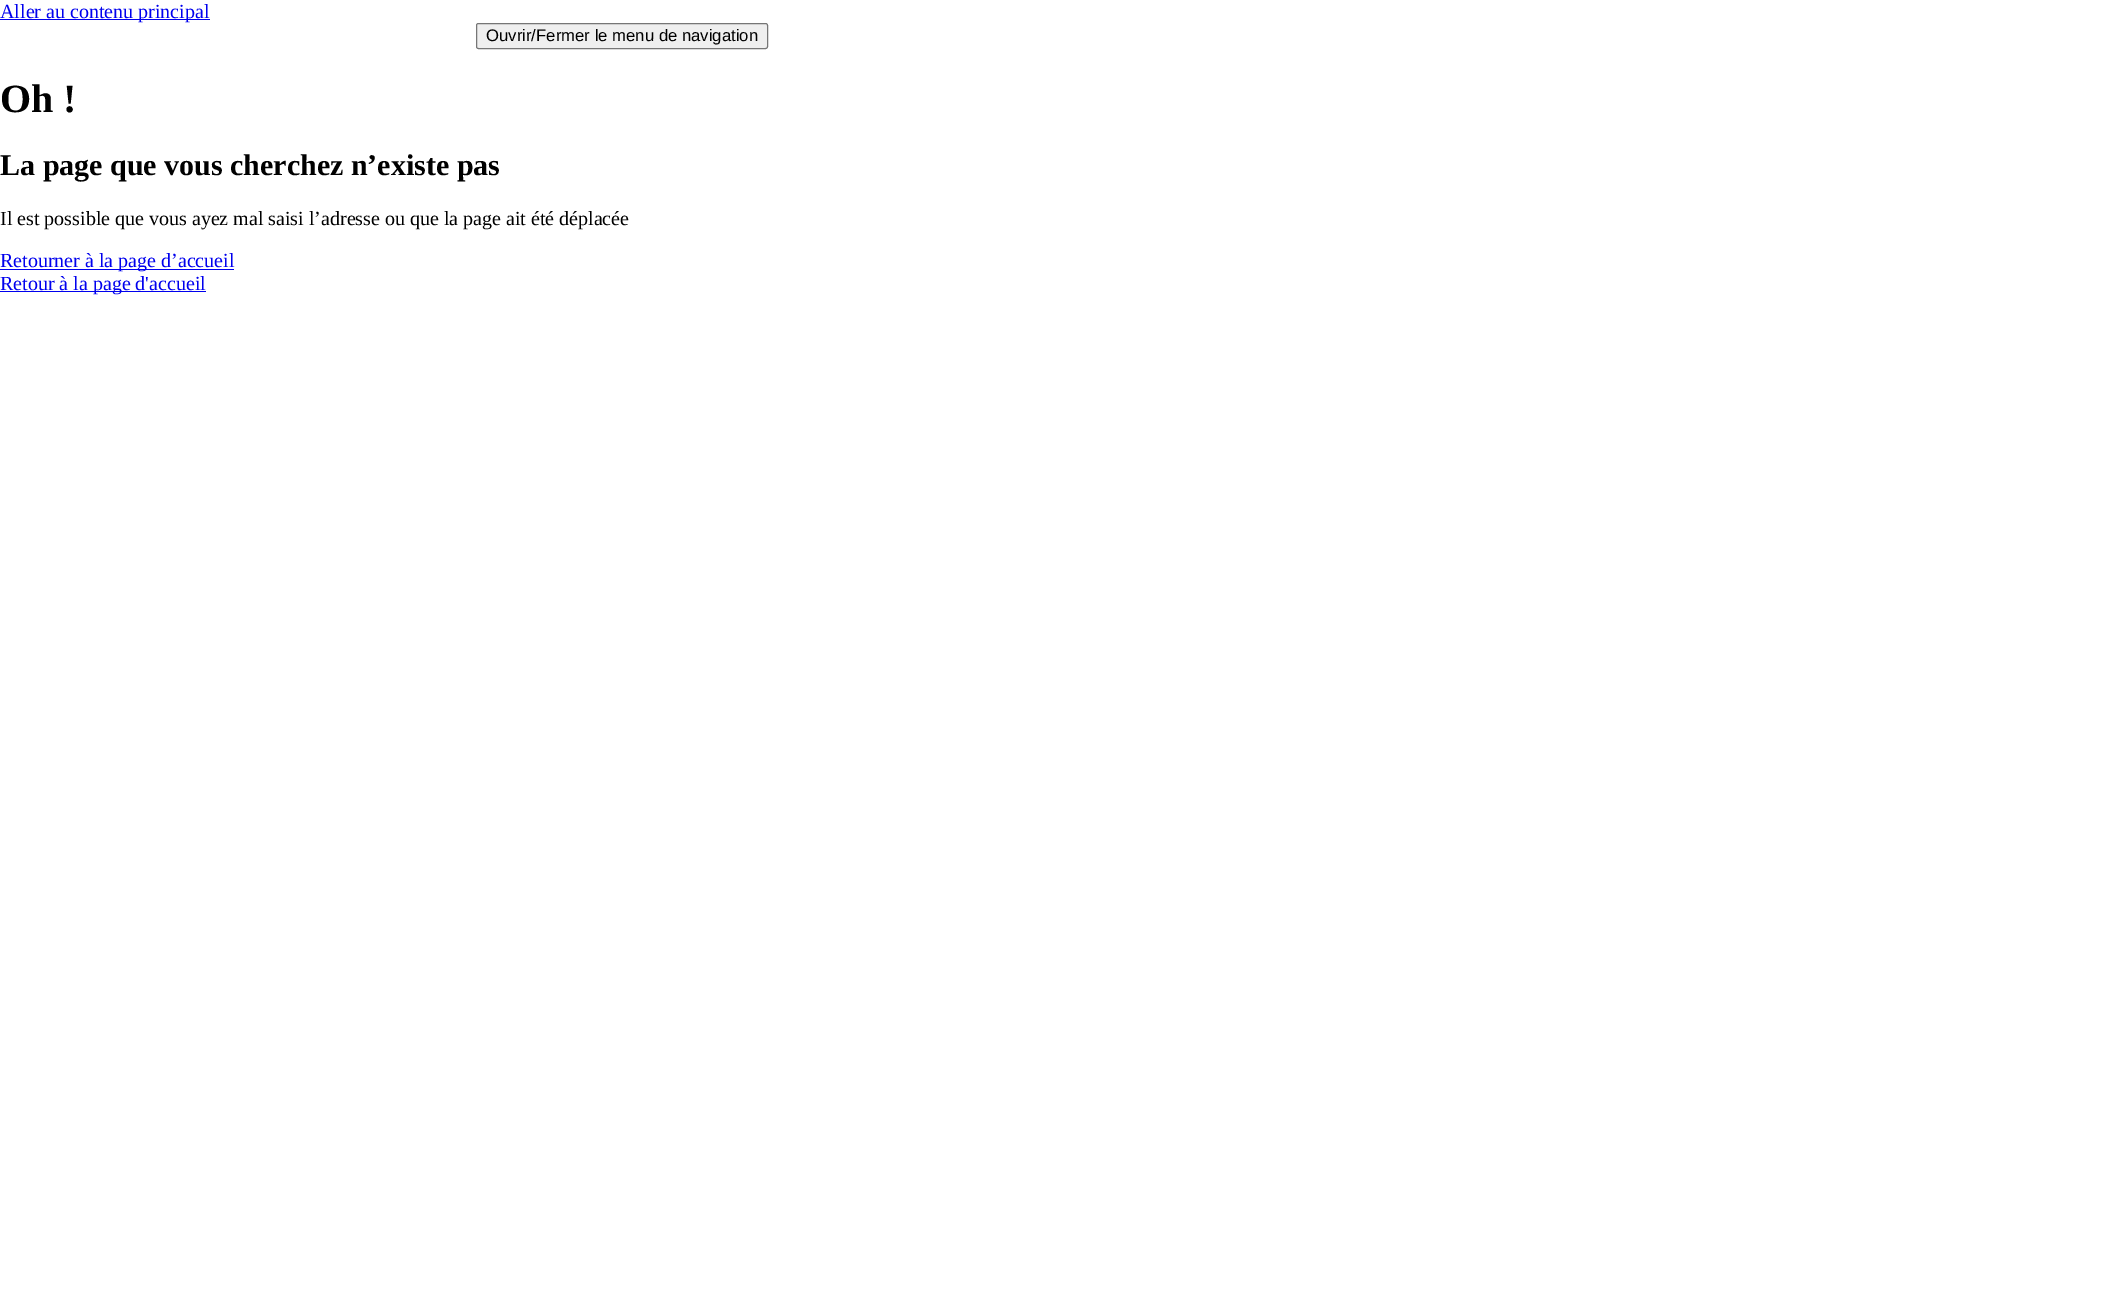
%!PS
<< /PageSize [2105 1294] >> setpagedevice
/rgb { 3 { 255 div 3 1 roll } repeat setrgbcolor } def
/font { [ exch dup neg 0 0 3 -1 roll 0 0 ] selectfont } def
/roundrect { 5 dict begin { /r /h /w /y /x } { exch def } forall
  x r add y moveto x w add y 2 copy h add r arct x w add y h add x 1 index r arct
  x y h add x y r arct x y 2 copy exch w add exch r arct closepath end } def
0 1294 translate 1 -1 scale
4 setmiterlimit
255 255 255 rgb
0 0 2105 1294 rectfill
0 0 238 rgb
0 19 210 1 rectfill
239 239 239 rgb
476.5 23.5 291 25 2 roundrect gsave fill grestore
118 118 118 rgb
stroke
0 0 238 rgb
0 269 234 1 rectfill
0 291 206 1 rectfill
/LiberationSerif-Regular 20 font
0 18 moveto (Aller au contenu principal) show
/LiberationSans-Regular 16.7 font
0 0 0 rgb
486 41 moveto (Ouvrir/Fermer le menu de navigation) show
/LiberationSerif-Bold 40 font
0 112 moveto (Oh !) show
/LiberationSerif-Bold 30 font
0 175 moveto (La page que vous cherchez n’existe pas) show
/LiberationSerif-Regular 20 font
0 225 moveto (Il est possible que vous ayez mal saisi l’adresse ou que la page ait été déplacée) show
0 0 238 rgb
0 267 moveto (Retourner à la page d’accueil) show
0 290 moveto (Retour à la page d'accueil) show
showpage
